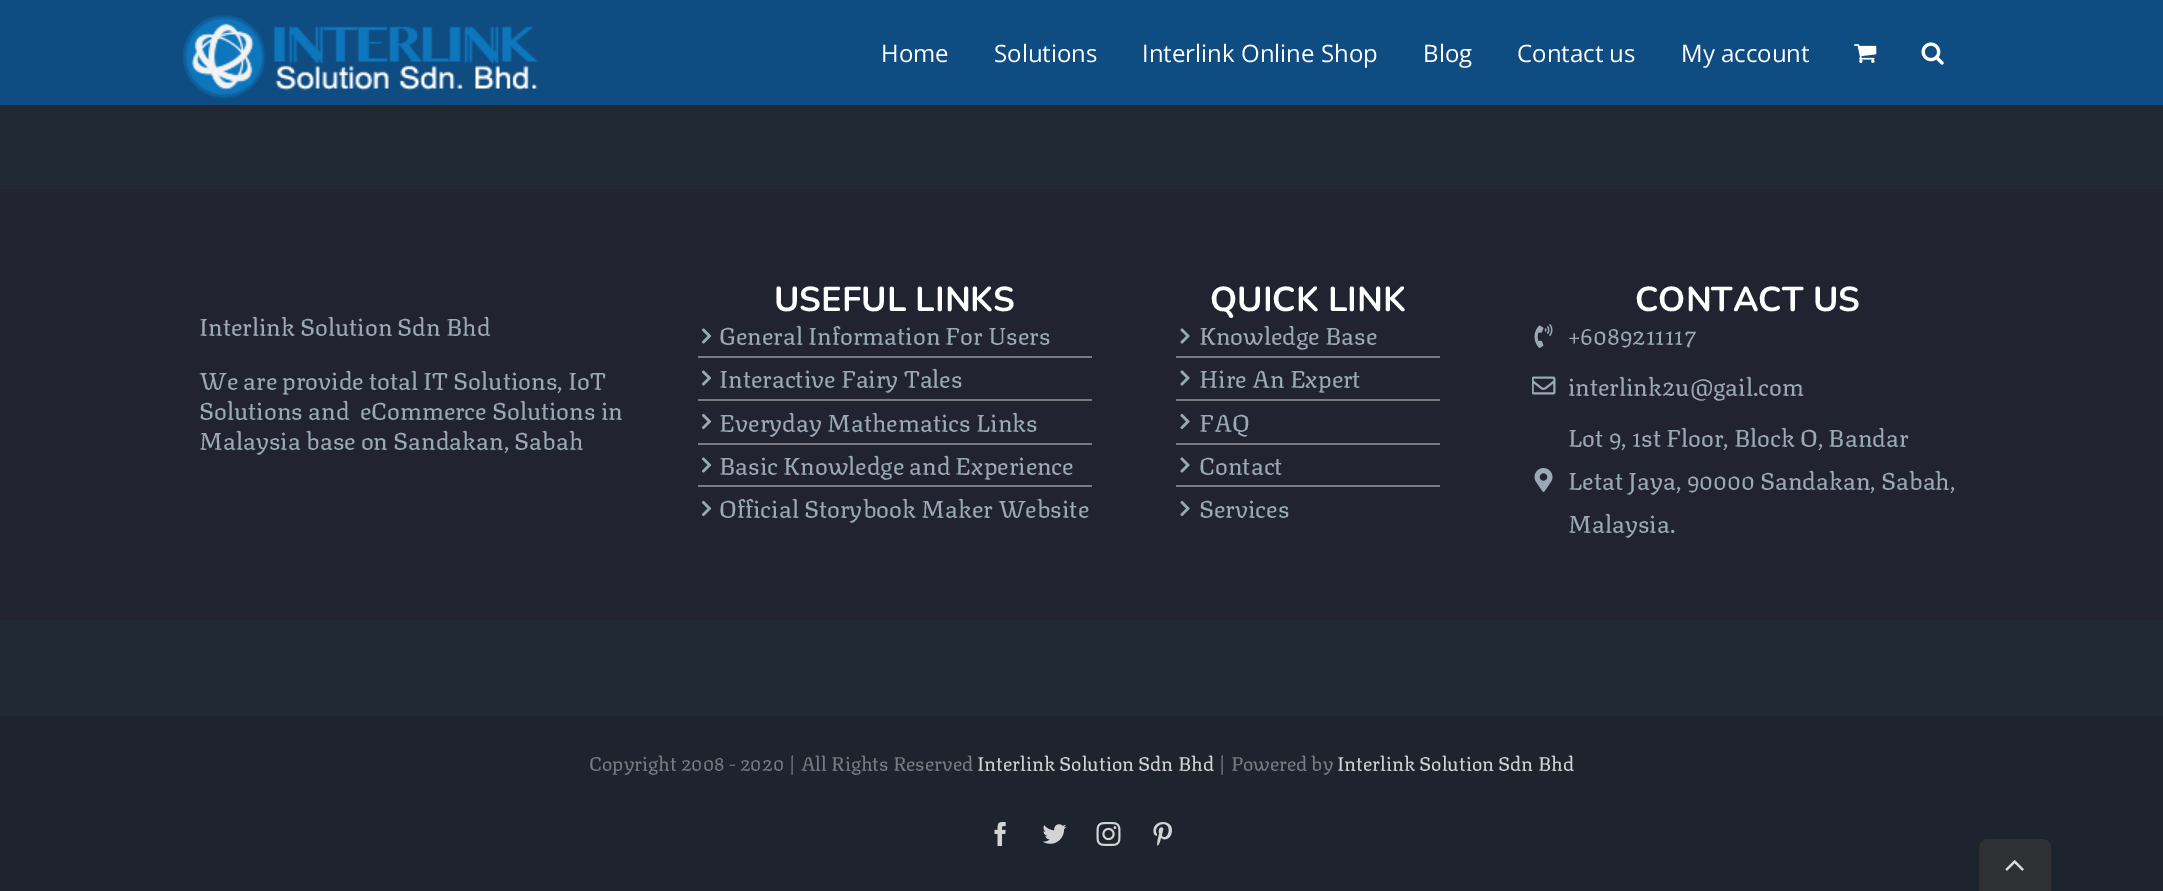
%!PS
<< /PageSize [2163 891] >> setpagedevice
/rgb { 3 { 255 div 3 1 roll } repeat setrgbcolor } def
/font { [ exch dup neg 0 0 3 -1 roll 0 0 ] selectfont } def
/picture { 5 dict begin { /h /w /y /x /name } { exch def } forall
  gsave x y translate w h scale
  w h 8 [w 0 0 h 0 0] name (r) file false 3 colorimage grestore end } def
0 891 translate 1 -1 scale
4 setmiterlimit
33 41 52 rgb
0 0 2163 891 rectfill
15 76 129 rgb
0 0 2163 105 rectfill
(img/1.rgb) 183 15 356 83 picture
(img/2.rgb) 1854 44 23 19 picture
(img/3.rgb) 1921 42 23 23 picture
33 35 49 rgb
0 189 2163 431 rectfill
(img/4.rgb) 701 328 11 16 picture
121 122 130 rgb
698 356 394 2 rectfill
(img/4.rgb) 701 370 11 16 picture
698 399 394 2 rectfill
(img/5.rgb) 701 413 11 17 picture
698 443 394 2 rectfill
(img/4.rgb) 701 457 11 16 picture
698 485 394 2 rectfill
(img/5.rgb) 701 500 11 17 picture
(img/6.rgb) 1180 328 10 16 picture
1176 356 264 2 rectfill
(img/6.rgb) 1180 370 10 16 picture
1176 399 264 2 rectfill
(img/7.rgb) 1180 413 10 17 picture
1176 443 264 2 rectfill
(img/6.rgb) 1180 457 10 16 picture
1176 485 264 2 rectfill
(img/7.rgb) 1180 500 10 17 picture
(img/8.rgb) 1534 324 19 24 picture
(img/9.rgb) 1532 376 24 19 picture
(img/10.rgb) 1534 468 19 24 picture
29 36 45 rgb
0 716 2163 175 rectfill
(img/11.rgb) 994 822 12 24 picture
(img/12.rgb) 1042 824 25 20 picture
(img/13.rgb) 1096 822 25 24 picture
(img/14.rgb) 1153 822 19 24 picture
47 48 50 rgb
1988 839 moveto 2042 839 lineto 2047 839 2051 843 2051 848 curveto 2051 891 lineto 1979 891 lineto 1979 848 lineto 1979 843 1983 839 1988 839 curveto closepath fill
(img/15.rgb) 2005 860 19 11 picture
/OpenSans-Regular 24 font
255 255 255 rgb
[
  [(Home) 881 62]
  [(Solutions) 994 62]
  [(Interlink Online Shop) 1142 62]
  [(Blog) 1423 62]
  [(Contact us) 1517 62]
  [(My account) 1681 62]
] { aload pop moveto show } forall
/Texturina-Regular 24 font
153 169 181 rgb
[
  [(Interlink Solution Sdn Bhd) 199 336]
  [(We are provide total IT Solutions, IoT) 199 390]
  [(Solutions and  eCommerce Solutions in) 199 420]
  [(Malaysia base on Sandakan, Sabah) 199 450]
] { aload pop moveto show } forall
/Nunito-Bold 34.5 font
255 255 255 rgb
774 311 moveto (USEFUL LINKS) show
/Texturina-Regular 24 font
153 169 181 rgb
[
  [(General Information For Users) 719 345]
  [(Interactive Fairy Tales) 719 388]
  [(Everyday Mathematics Links) 719 432]
  [(Basic Knowledge and Experience) 719 475]
  [(Official Storybook Maker Website) 719 518]
] { aload pop moveto show } forall
/Nunito-Bold 34.5 font
255 255 255 rgb
1210 311 moveto (QUICK LINK) show
/Texturina-Regular 24 font
153 169 181 rgb
[
  [(Knowledge Base) 1199 345]
  [(Hire An Expert) 1199 388]
  [(FAQ) 1199 432]
  [(Contact) 1199 475]
  [(Services) 1199 518]
] { aload pop moveto show } forall
/Nunito-Bold 34.5 font
255 255 255 rgb
1635 311 moveto (CONTACT US) show
/Texturina-Regular 24 font
153 169 181 rgb
[
  [(+6089211117) 1568 345]
  [(interlink2u@gail.com) 1568 396]
  [(Lot 9, 1st Floor, Block O, Bandar) 1568 447]
  [(Letat Jaya, 90000 Sandakan, Sabah,) 1568 490]
  [(Malaysia.) 1568 533]
] { aload pop moveto show } forall
/Texturina-Regular 19.5 font
119 124 129 rgb
589 771 moveto (Copyright 2008 - 2020 | All Rights Reserved) show
210 211 213 rgb
977 771 moveto (Interlink Solution Sdn Bhd) show
119 124 129 rgb
1218 771 moveto (| Powered by) show
210 211 213 rgb
1337 771 moveto (Interlink Solution Sdn Bhd) show
showpage
